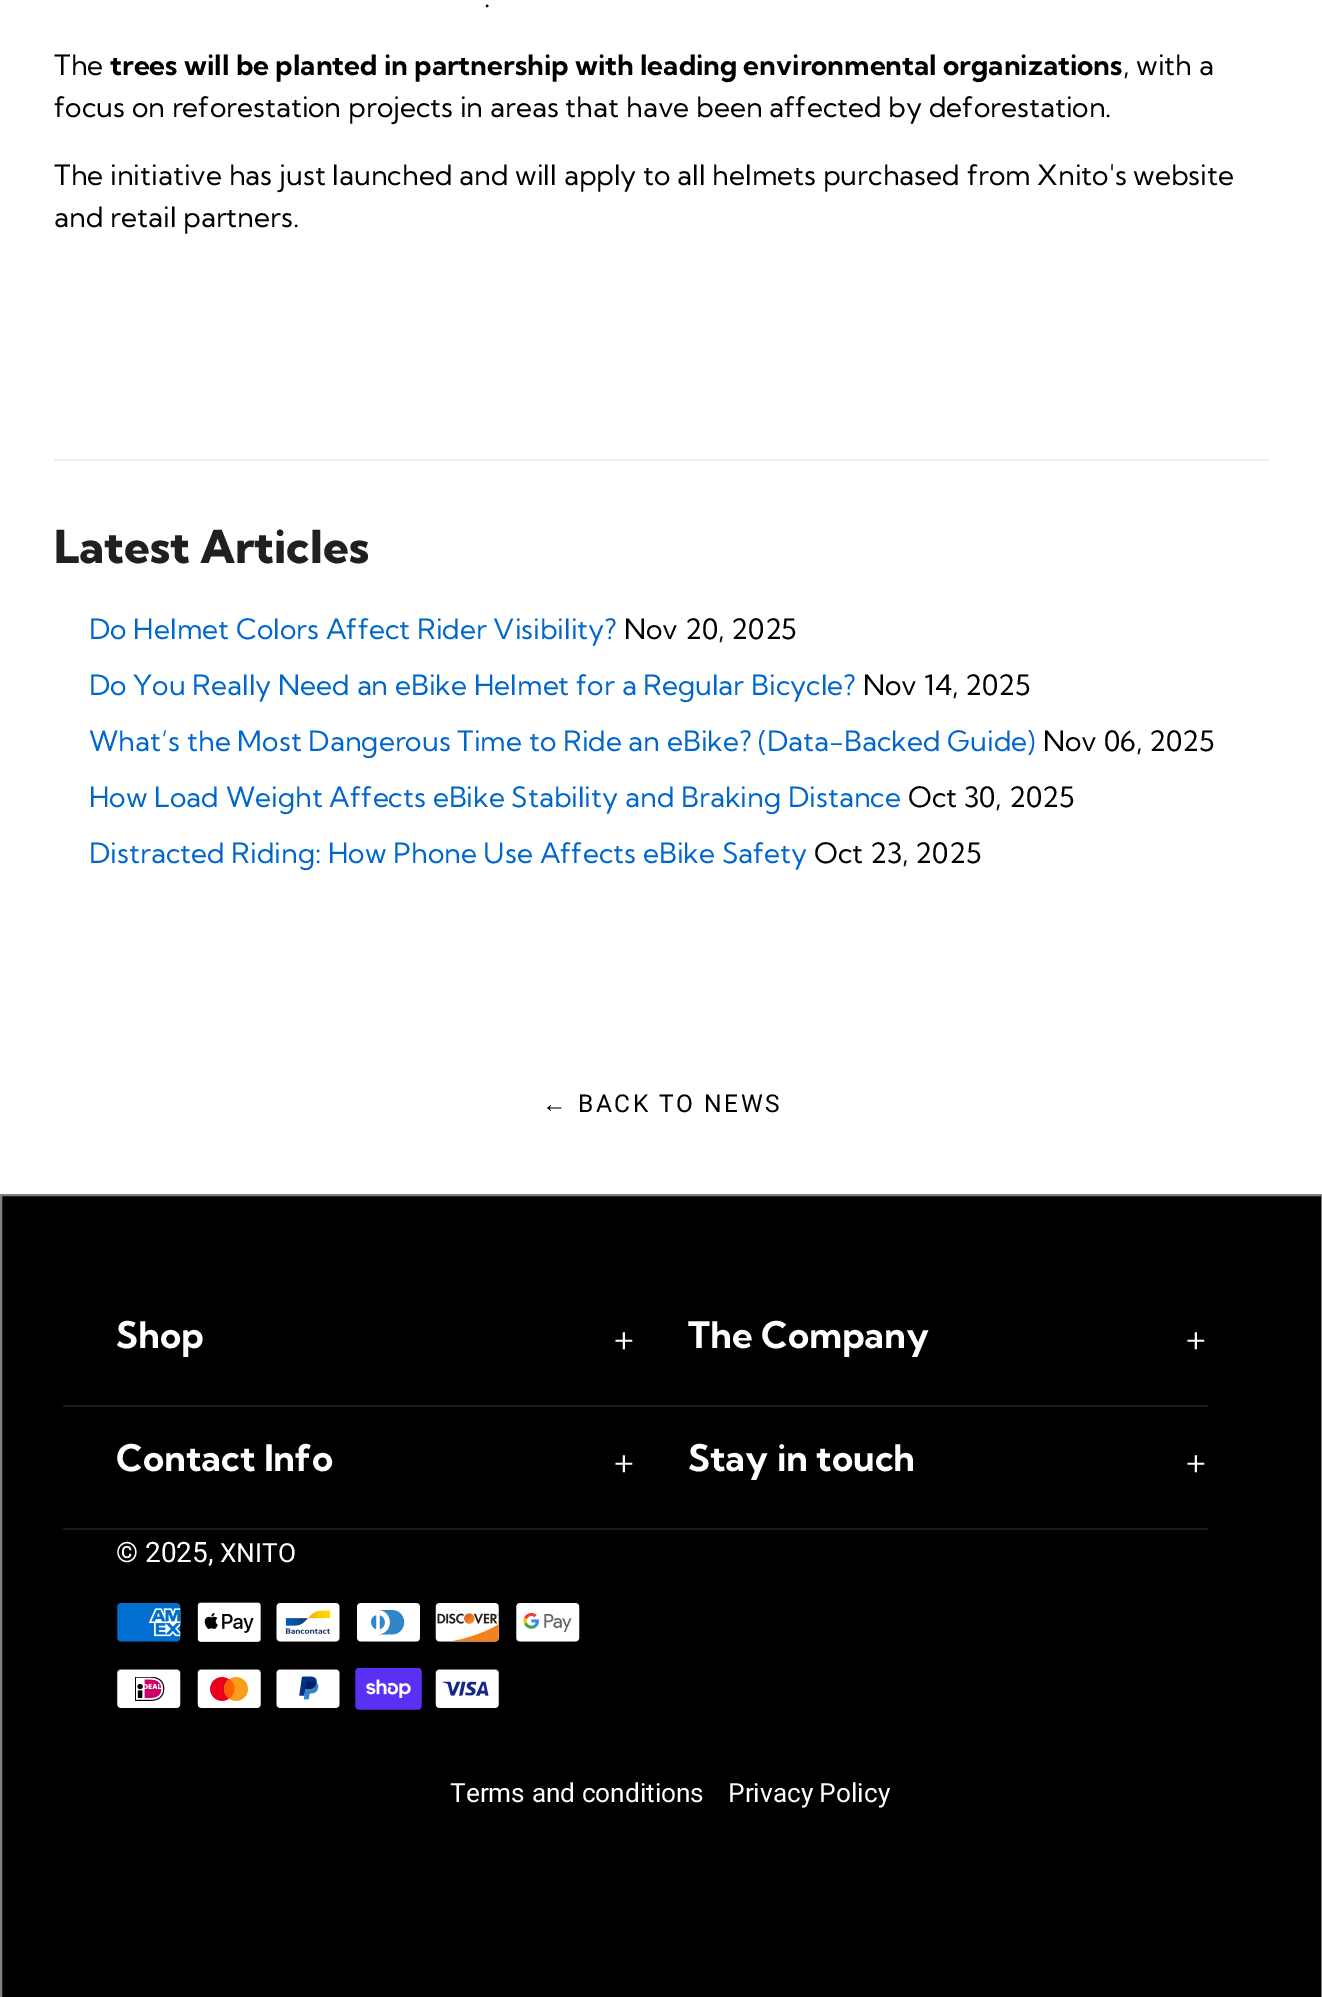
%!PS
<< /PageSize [1322 1997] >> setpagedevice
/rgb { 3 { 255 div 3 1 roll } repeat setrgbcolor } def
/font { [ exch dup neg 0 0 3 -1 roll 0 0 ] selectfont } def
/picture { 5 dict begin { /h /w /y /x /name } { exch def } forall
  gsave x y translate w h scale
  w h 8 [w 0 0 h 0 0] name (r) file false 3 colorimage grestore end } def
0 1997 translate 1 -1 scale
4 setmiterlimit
255 255 255 rgb
0 0 1322 1997 rectfill
238 238 238 rgb
54 459 1215 2 rectfill
0 0 0 rgb
1 1195 moveto 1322 1195 lineto 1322 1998 lineto 1 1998 lineto closepath gsave fill grestore
128 128 128 rgb
2 setlinewidth
stroke
26 26 26 rgb
63 1405 1145 2 rectfill
63 1528 1145 2 rectfill
(img/1.rgb) 117 1603 64 39 picture
(img/2.rgb) 197 1602 64 40 picture
(img/3.rgb) 276 1603 64 39 picture
(img/4.rgb) 357 1603 63 39 picture
(img/5.rgb) 435 1603 64 39 picture
(img/6.rgb) 516 1603 64 39 picture
(img/7.rgb) 117 1669 64 39 picture
(img/8.rgb) 197 1669 64 39 picture
(img/9.rgb) 276 1669 64 39 picture
(img/10.rgb) 355 1668 67 42 picture
(img/11.rgb) 435 1669 64 39 picture
/KumbhSans-Regular 28 font
0 0 0 rgb
484 7 moveto (.) show
54 75 moveto (The) show
/KumbhSans-Bold 28 font
110 75 moveto (trees will be planted in partnership with leading environmental organizations) show
/KumbhSans-Regular 28 font
[
  [(, with a) 1123 75]
  [(focus on reforestation projects in areas that have been affected by deforestation.) 54 117]
  [(The initiative has just launched and will apply to all helmets purchased from Xnito's website) 54 185]
  [(and retail partners.) 54 227]
] { aload pop moveto show } forall
/KumbhSans-ExtraBold 45.5 font
31 32 33 rgb
54 563 moveto (Latest Articles) show
/KumbhSans-Regular 28 font
0 102 204 rgb
89 639 moveto (Do Helmet Colors Affect Rider Visibility?) show
0 0 0 rgb
624 639 moveto (Nov 20, 2025) show
0 102 204 rgb
89 695 moveto (Do You Really Need an eBike Helmet for a Regular Bicycle?) show
0 0 0 rgb
863 695 moveto (Nov 14, 2025) show
0 102 204 rgb
89 751 moveto (What’s the Most Dangerous Time to Ride an eBike? \(Data-Backed Guide\)) show
0 0 0 rgb
1043 751 moveto (Nov 06, 2025) show
0 102 204 rgb
89 807 moveto (How Load Weight Affects eBike Stability and Braking Distance) show
0 0 0 rgb
908 807 moveto (Oct 30, 2025) show
0 102 204 rgb
89 863 moveto (Distracted Riding: How Phone Use Affects eBike Safety) show
0 0 0 rgb
814 863 moveto (Oct 23, 2025) show
/LiberationSans-Regular 24.5 font
542 1112 moveto 2.5 0 (←) ashow
/Roboto-Regular 24.5 font
578 1112 moveto 2.5 0 (BACK TO NEWS) ashow
/KumbhSans-Bold 36.5 font
255 255 255 rgb
116 1348 moveto (Shop) show
/KumbhSans-Light 42 font
612 1351 moveto (+) show
/KumbhSans-Bold 36.5 font
688 1348 moveto (The Company) show
/KumbhSans-Light 42 font
1184 1351 moveto (+) show
/KumbhSans-Bold 36.5 font
116 1471 moveto (Contact Info) show
/KumbhSans-Light 42 font
612 1474 moveto (+) show
/KumbhSans-Bold 36.5 font
688 1471 moveto (Stay in touch) show
/KumbhSans-Light 42 font
1184 1474 moveto (+) show
/Roboto-Regular 28 font
116 1562 moveto (© 2025,) show
/Roboto-Regular 26.25 font
[
  [(XNITO) 220 1562]
  [(Terms and conditions) 450 1802]
  [(Privacy Policy) 728 1802]
] { aload pop moveto show } forall
showpage
